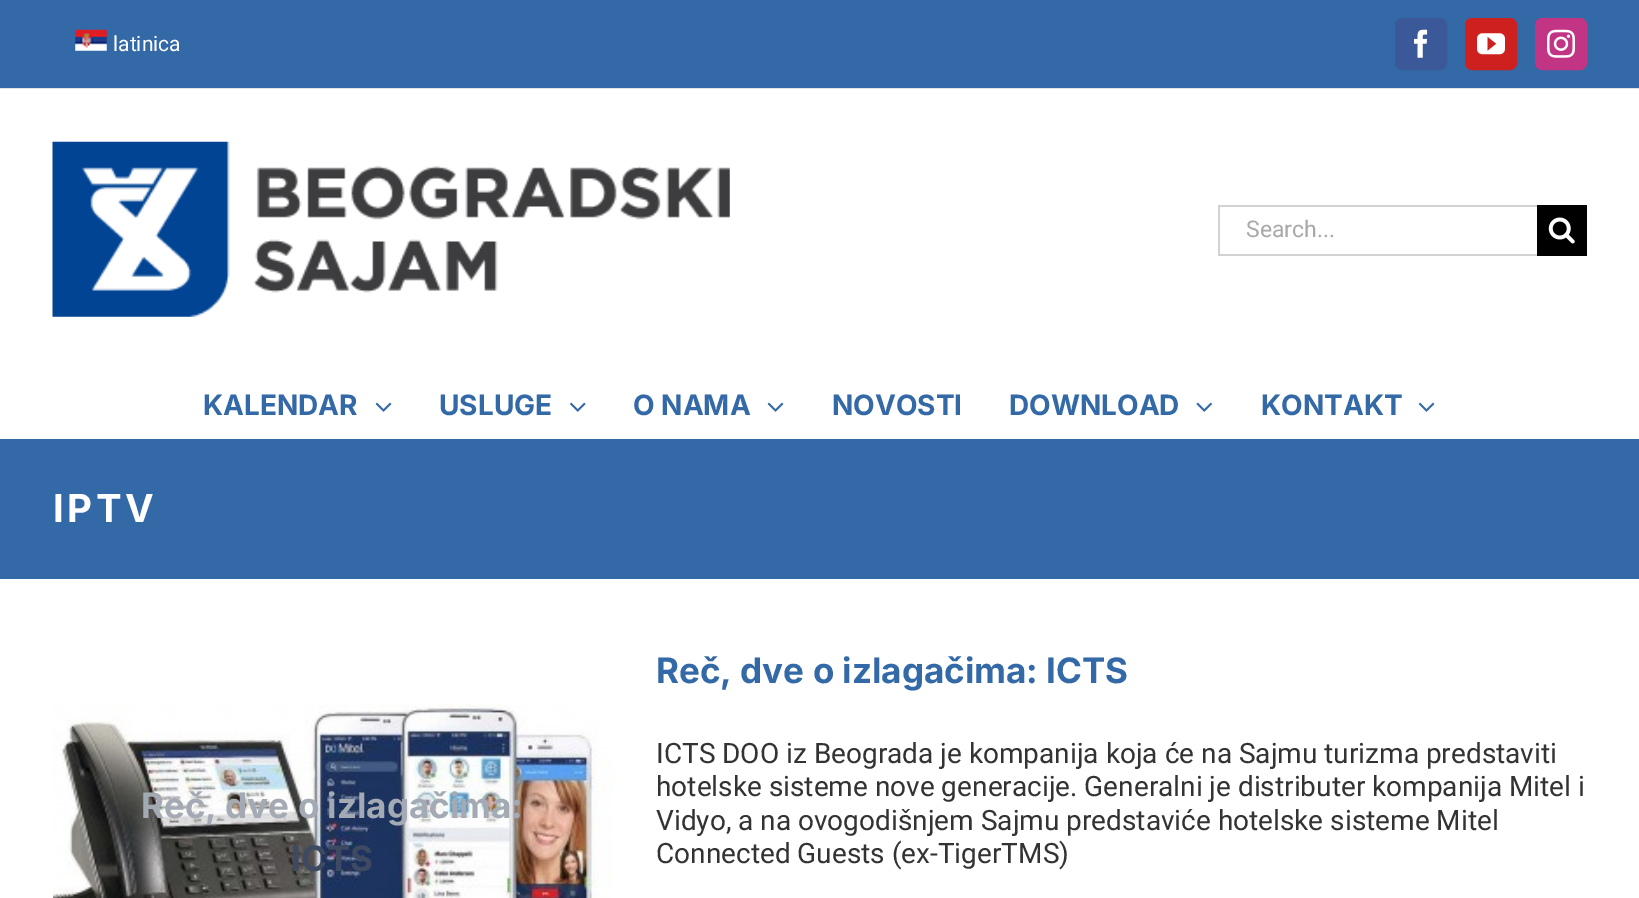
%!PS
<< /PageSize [1639 898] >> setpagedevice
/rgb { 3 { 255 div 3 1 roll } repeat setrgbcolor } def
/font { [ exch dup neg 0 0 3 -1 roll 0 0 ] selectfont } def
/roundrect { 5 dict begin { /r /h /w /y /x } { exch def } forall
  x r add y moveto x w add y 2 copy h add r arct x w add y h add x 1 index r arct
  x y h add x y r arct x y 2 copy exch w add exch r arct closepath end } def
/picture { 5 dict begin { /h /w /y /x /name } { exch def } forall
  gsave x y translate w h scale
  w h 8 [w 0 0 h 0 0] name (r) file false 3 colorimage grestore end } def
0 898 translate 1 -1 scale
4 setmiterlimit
51 105 167 rgb
0 0 1639 898 rectfill
229 229 229 rgb
0 88 1639 1 rectfill
(img/1.rgb) 75 29 32 22 picture
59 89 152 rgb
1396 19 50 50 6 roundrect gsave fill grestore
2 setlinewidth
stroke
(img/2.rgb) 1414 29 14 29 picture
205 32 31 rgb
1466 19 50 50 6 roundrect gsave fill grestore
stroke
(img/3.rgb) 1477 33 28 22 picture
193 53 132 rgb
1536 19 50 50 6 roundrect gsave fill grestore
stroke
(img/4.rgb) 1547 29 28 29 picture
255 255 255 rgb
0 89 1639 350 rectfill
(img/5.rgb) 52 141 678 176 picture
[
  [1218 205 319 2 210 210 210]
  [1218 254 319 2 210 210 210]
  [1218 205 2 51 210 210 210]
  [1537 205 50 51 0 0 0]
] { aload pop rgb rectfill } forall
(img/6.rgb) 1548 217 27 27 picture
(img/7.rgb) 375 402 17 10 picture
(img/8.rgb) 570 402 16 10 picture
(img/7.rgb) 767 402 17 10 picture
(img/9.rgb) 1196 402 16 10 picture
(img/7.rgb) 1418 402 17 10 picture
255 255 255 rgb
0 579 1639 319 rectfill
(img/10.rgb) 53 704 560 194 picture
/Roboto-Regular 21 font
113 51 moveto (latinica) show
/Roboto-Regular 23 font
170 169 169 rgb
1246 237 moveto (Search...) show
/Inter-Bold 28 font
51 105 167 rgb
[
  [(KALENDAR) 203 415]
  [(USLUGE) 439 415]
  [(O NAMA) 633 415]
  [(NOVOSTI) 832 415]
  [(DOWNLOAD) 1009 415]
  [(KONTAKT) 1261 415]
] { aload pop moveto show } forall
/Inter-Bold 38.5 font
255 255 255 rgb
53 522 moveto 3.5 0 (IPTV) ashow
/Inter-Bold 35 font
163 170 180 rgb
141 818 moveto (Reč, dve o izlagačima:) show
62 74 97 rgb
291 871 moveto (ICTS) show
51 105 167 rgb
656 683 moveto (Reč, dve o izlagačima: ICTS) show
/Roboto-Regular 28 font
51 51 51 rgb
[
  [(ICTS DOO iz Beograda je kompanija koja će na Sajmu turizma predstaviti) 656 763]
  [(hotelske sisteme nove generacije. Generalni je distributer kompanija Mitel i) 656 796]
  [(Vidyo, a na ovogodišnjem Sajmu predstaviće hotelske sisteme Mitel) 656 830]
  [(Connected Guests \(ex-TigerTMS\)) 656 863]
] { aload pop moveto show } forall
showpage
